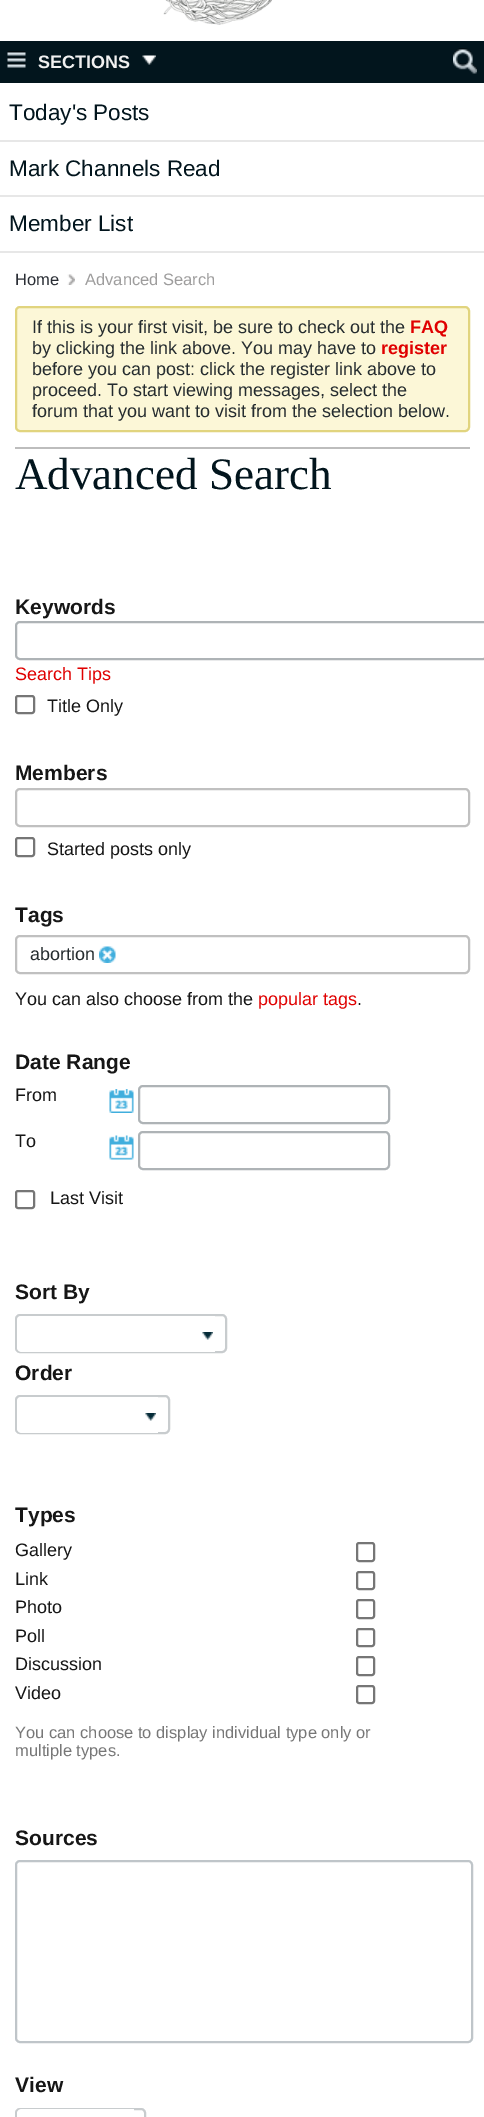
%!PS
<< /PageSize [484 2117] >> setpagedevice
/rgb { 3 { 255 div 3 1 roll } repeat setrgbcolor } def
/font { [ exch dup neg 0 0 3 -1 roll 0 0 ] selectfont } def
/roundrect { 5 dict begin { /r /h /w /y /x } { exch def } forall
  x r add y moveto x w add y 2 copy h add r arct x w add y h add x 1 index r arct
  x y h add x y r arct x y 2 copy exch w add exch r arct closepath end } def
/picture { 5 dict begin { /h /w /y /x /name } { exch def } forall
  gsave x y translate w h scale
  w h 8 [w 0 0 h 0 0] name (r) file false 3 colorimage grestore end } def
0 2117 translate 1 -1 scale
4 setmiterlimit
255 255 255 rgb
0 0 484 2117 rectfill
(img/1.rgb) 163 0 109 25 picture
2 21 29 rgb
0 41 484 42 rectfill
(img/2.rgb) 7 51 19 17 picture
(img/3.rgb) 142 55 14 10 picture
(img/4.rgb) 453 48 24 26 picture
[
  [0 140 484 2 231 231 231]
  [0 195 484 2 231 231 231]
  [0 251 484 2 231 231 231]
] { aload pop rgb rectfill } forall
(img/5.rgb) 67 274 8 11 picture
252 247 215 rgb
16 307 453 124 4 roundrect gsave fill grestore
225 212 126 rgb
2 setlinewidth
stroke
189 189 189 rgb
15 447 455 2 rectfill
174 179 182 rgb
16 622 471 37 4 roundrect stroke
118 118 118 rgb
16 696 18 17 2 roundrect stroke
192 192 192 rgb
16 789 453 37 4 roundrect stroke
118 118 118 rgb
16 838 18 18 2 roundrect stroke
192 192 192 rgb
16 936 453 37 4 roundrect stroke
(img/6.rgb) 99 946 17 17 picture
(img/7.rgb) 109 1089 25 24 picture
174 179 182 rgb
139 1086 250 37 4 roundrect stroke
(img/8.rgb) 109 1135 25 25 picture
139 1132 250 37 4 roundrect stroke
118 118 118 rgb
16 1191 18 17 2 roundrect stroke
200 204 206 rgb
16 1315 210 37 4 roundrect stroke
255 255 255 rgb
22 1316 moveto 215 1316 lineto 215 1352 lineto 22 1352 lineto 19 1352 17 1350 17 1347 curveto 17 1321 lineto 17 1318 19 1316 22 1316 curveto closepath fill
(img/9.rgb) 202 1332 11 8 picture
200 204 206 rgb
16 1396 153 37 4 roundrect stroke
255 255 255 rgb
22 1397 moveto 158 1397 lineto 158 1433 lineto 22 1433 lineto 19 1433 17 1431 17 1428 curveto 17 1402 lineto 17 1399 19 1397 22 1397 curveto closepath fill
(img/9.rgb) 145 1413 11 8 picture
118 118 118 rgb
357 1543 17 18 2 roundrect stroke
357 1572 17 17 2 roundrect stroke
357 1600 17 18 2 roundrect stroke
357 1629 17 17 2 roundrect stroke
357 1657 17 18 2 roundrect stroke
357 1686 17 17 2 roundrect stroke
191 197 201 rgb
16 1861 456 181 4 roundrect stroke
200 204 206 rgb
16 2109 129 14 4 roundrect stroke
255 255 255 rgb
22 2109 moveto 134 2109 lineto 134 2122 lineto 22 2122 lineto 19 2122 17 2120 17 2117 curveto 17 2114 lineto 17 2111 19 2109 22 2109 curveto closepath fill
/LiberationSans-Bold 18 font
241 241 241 rgb
38 68 moveto (SECTIONS) show
/LiberationSans-Regular 22.5 font
2 21 29 rgb
[
  [(Today's Posts) 9 120]
  [(Mark Channels Read) 9 176]
  [(Member List) 9 231]
] { aload pop moveto show } forall
/LiberationSans-Regular 16.5 font
42 46 53 rgb
15 285 moveto (Home) show
158 157 157 rgb
85 285 moveto (Advanced Search) show
/LiberationSans-Regular 18 font
37 44 47 rgb
32 333 moveto (If this is your first visit, be sure to check out the) show
/LiberationSans-Bold 18 font
224 0 0 rgb
410 333 moveto (FAQ) show
/LiberationSans-Regular 18 font
37 44 47 rgb
32 354 moveto (by clicking the link above. You may have to) show
/LiberationSans-Bold 18 font
224 0 0 rgb
381 354 moveto (register) show
/LiberationSans-Regular 18 font
37 44 47 rgb
[
  [(before you can post: click the register link above to) 32 375]
  [(proceed. To start viewing messages, select the) 32 396]
  [(forum that you want to visit from the selection below.) 32 417]
] { aload pop moveto show } forall
/LiberationSerif-Regular 45 font
2 21 29 rgb
15 489 moveto (Advanced Search) show
/LiberationSans-Bold 21 font
22 22 22 rgb
15 614 moveto (Keywords) show
/LiberationSans-Regular 18 font
224 0 0 rgb
15 680 moveto (Search Tips) show
22 22 22 rgb
47 712 moveto (Title Only) show
/LiberationSans-Bold 21 font
15 780 moveto (Members) show
/LiberationSans-Regular 18 font
47 855 moveto (Started posts only) show
/LiberationSans-Bold 21 font
15 922 moveto (Tags) show
/LiberationSans-Regular 18 font
37 44 47 rgb
30 960 moveto (abortion) show
22 22 22 rgb
15 1005 moveto (You can also choose from the) show
224 0 0 rgb
258 1005 moveto (popular tags) show
22 22 22 rgb
357 1005 moveto (.) show
/LiberationSans-Bold 21 font
15 1069 moveto (Date Range) show
/LiberationSans-Regular 18 font
[
  [(From) 15 1101]
  [(To) 15 1147]
  [(Last Visit) 50 1204]
] { aload pop moveto show } forall
/LiberationSans-Bold 21 font
[
  [(Sort By) 15 1299]
  [(Order) 15 1380]
  [(Types) 15 1522]
] { aload pop moveto show } forall
/LiberationSans-Regular 18 font
[
  [(Gallery) 15 1556]
  [(Link) 15 1585]
  [(Photo) 15 1613]
  [(Poll) 15 1642]
  [(Discussion) 15 1670]
  [(Video) 15 1699]
] { aload pop moveto show } forall
/LiberationSans-Regular 16.5 font
119 119 119 rgb
15 1738 moveto (You can choose to display individual type only or) show
15 1756 moveto (multiple types.) show
/LiberationSans-Bold 21 font
22 22 22 rgb
15 1845 moveto (Sources) show
15 2092 moveto (View) show
showpage
